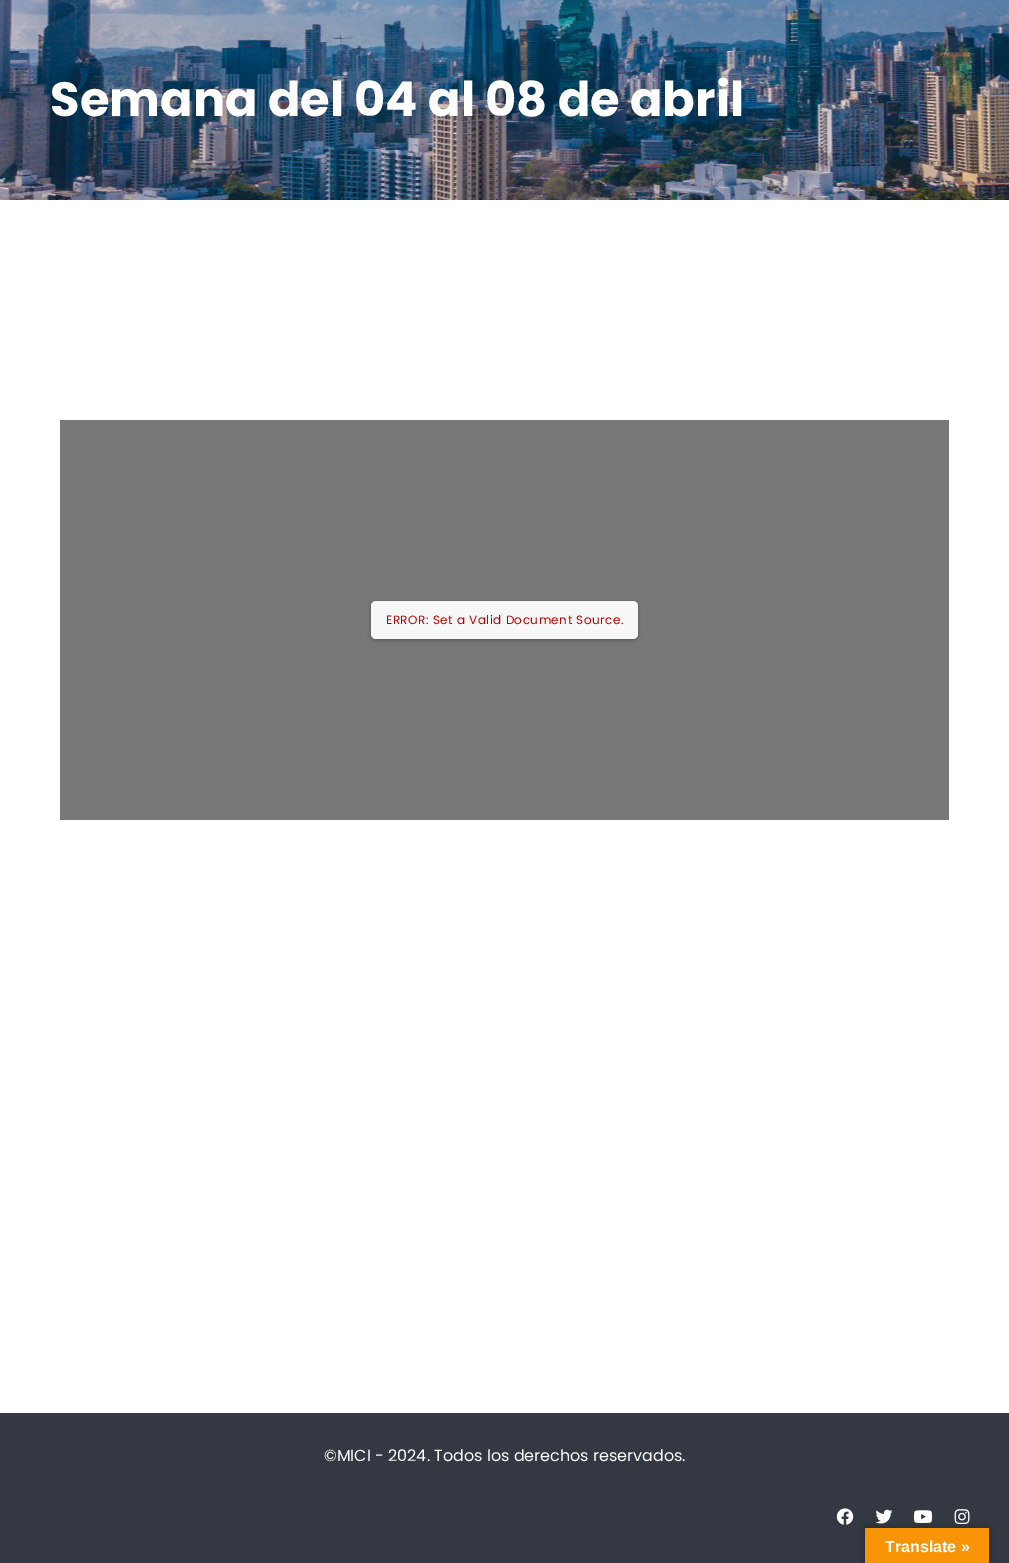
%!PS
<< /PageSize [1009 1563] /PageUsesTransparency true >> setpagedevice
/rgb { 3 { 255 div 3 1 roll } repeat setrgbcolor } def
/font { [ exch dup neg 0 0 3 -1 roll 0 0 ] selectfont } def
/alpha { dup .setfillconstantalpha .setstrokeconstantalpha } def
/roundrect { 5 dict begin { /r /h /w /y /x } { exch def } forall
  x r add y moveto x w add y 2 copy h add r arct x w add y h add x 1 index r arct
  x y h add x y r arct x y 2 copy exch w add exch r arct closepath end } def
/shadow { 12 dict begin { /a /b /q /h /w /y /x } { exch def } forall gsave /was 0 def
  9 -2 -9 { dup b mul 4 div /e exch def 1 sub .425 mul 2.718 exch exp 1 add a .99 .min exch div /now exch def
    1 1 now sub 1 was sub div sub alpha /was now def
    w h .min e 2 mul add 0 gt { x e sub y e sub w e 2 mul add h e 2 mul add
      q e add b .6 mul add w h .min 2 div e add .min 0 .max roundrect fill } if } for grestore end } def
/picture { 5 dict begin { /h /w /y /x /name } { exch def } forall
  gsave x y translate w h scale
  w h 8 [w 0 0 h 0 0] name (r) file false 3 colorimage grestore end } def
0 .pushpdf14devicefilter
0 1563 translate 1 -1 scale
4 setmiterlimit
51 56 67 rgb
0 0 1009 1563 rectfill
255 255 255 rgb
0 200 1009 1213 rectfill
(img/1.rgb) 0 0 1009 200 picture
119 119 119 rgb
60 420 889 400 rectfill
0 0 0 rgb
371 602 267 38 5 2 0.3 shadow
247 247 247 rgb
371 601 267 38 5 roundrect fill
(img/2.rgb) 836 1508 18 17 picture
(img/3.rgb) 875 1509 18 15 picture
(img/4.rgb) 913 1510 20 13 picture
(img/5.rgb) 954 1509 16 16 picture
0 0 0 rgb
865 1528 124 35 0 4.5 0.3 shadow
248 148 6 rgb
865 1528 124 35 rectfill
/Poppins-Bold 48 font
255 255 255 rgb
50 116 moveto (Semana del 04 al 08 de abril) show
/Poppins-Regular 12 font
187 0 0 rgb
386 624 moveto 0.5 0 (ERROR: Set a Valid Document Source.) ashow
/Poppins-Regular 16 font
255 255 255 rgb
324 1461 moveto (©MICI - 2024. Todos los derechos reservados.) show
/LiberationSans-Bold 16 font
885 1552 moveto (Translate ») show
.poppdf14devicefilter showpage
